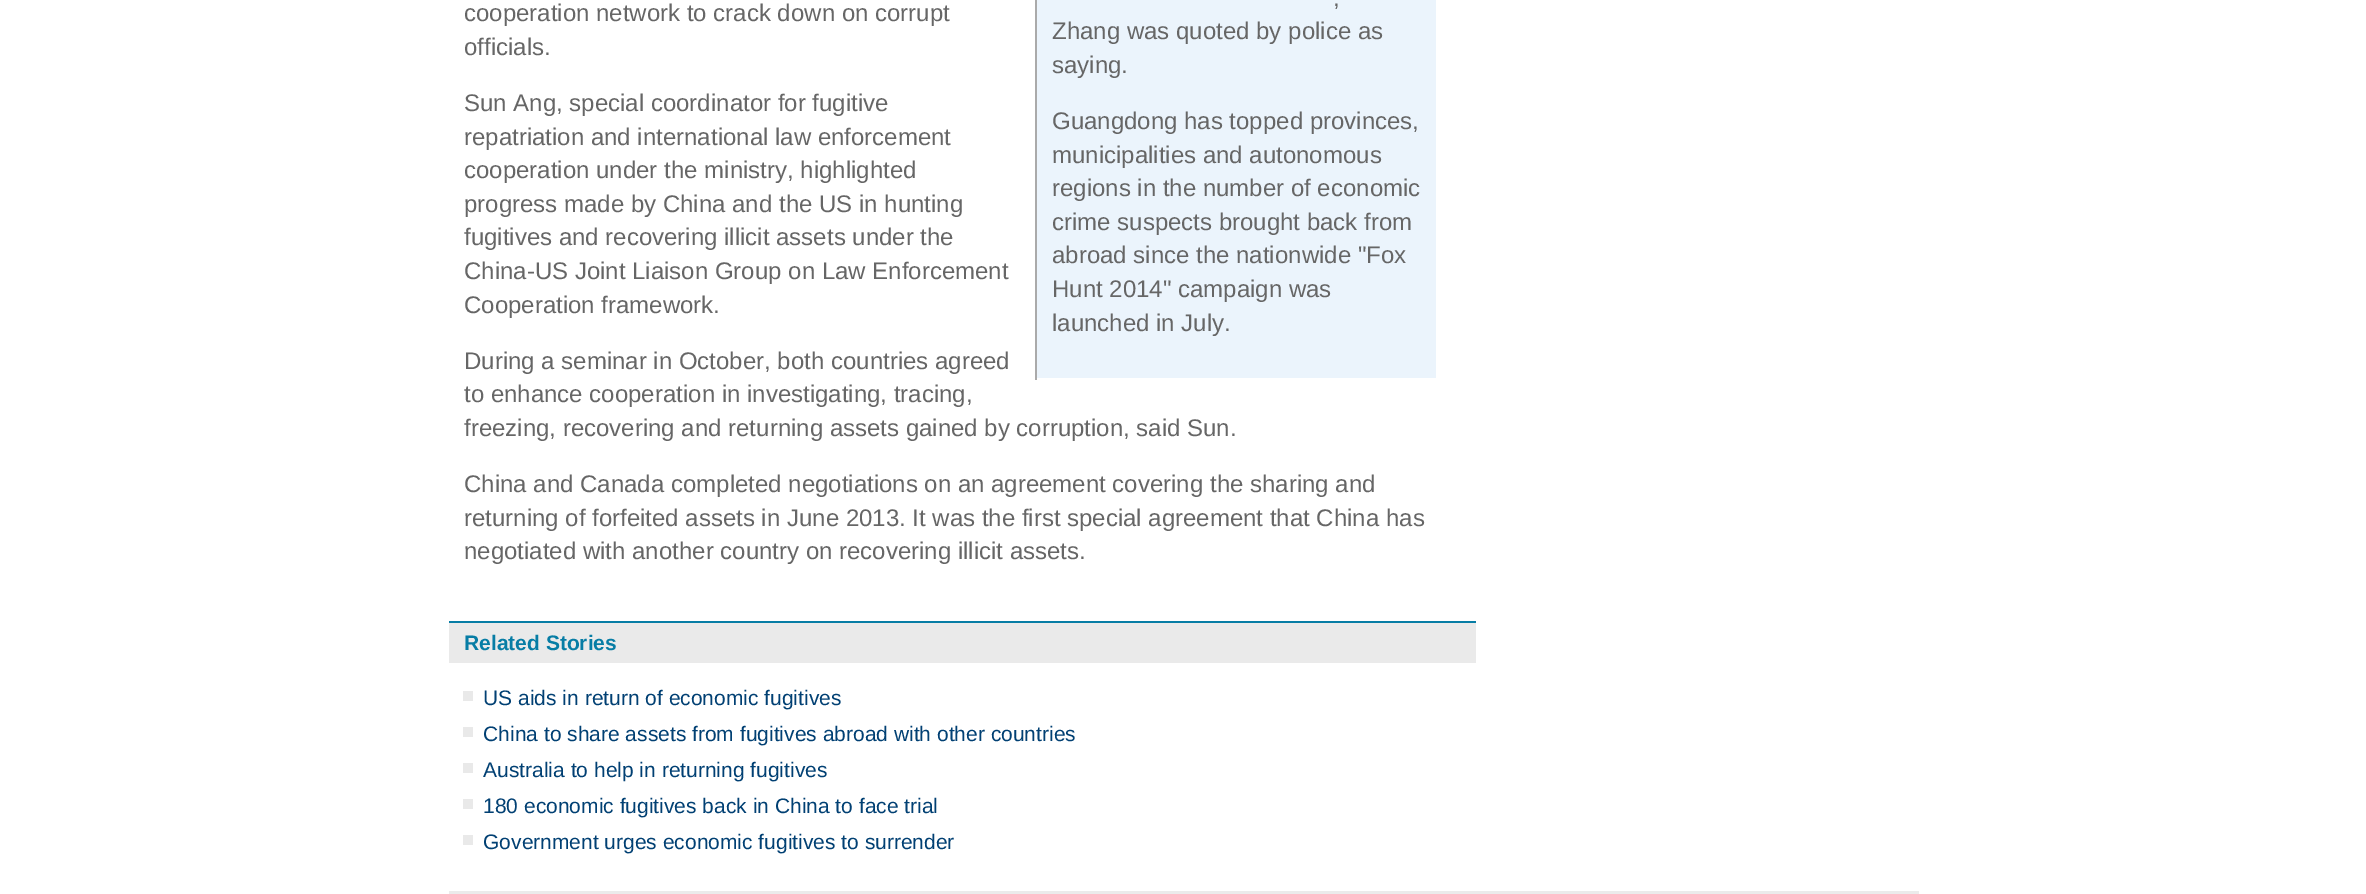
%!PS
<< /PageSize [2366 894] >> setpagedevice
/rgb { 3 { 255 div 3 1 roll } repeat setrgbcolor } def
/font { [ exch dup neg 0 0 3 -1 roll 0 0 ] selectfont } def
0 894 translate 1 -1 scale
4 setmiterlimit
255 255 255 rgb
0 0 2366 894 rectfill
[
  [1037 0 399 378 235 244 252]
  [1035 0 2 380 170 170 170]
  [449 623 1027 40 234 234 234]
  [449 621 1027 2 7 125 165]
  [463 691 10 10 233 233 233]
  [463 727 10 10 233 233 233]
  [463 763 10 10 233 233 233]
  [463 799 10 10 233 233 233]
  [463 835 10 10 233 233 233]
  [449 891 1470 3 235 235 235]
] { aload pop rgb rectfill } forall
/LiberationSans-Regular 24 font
102 102 102 rgb
[
  [(cooperation network to crack down on corrupt) 464 21]
  [(officials.) 464 55]
  [(,) 1333 6]
  [(Zhang was quoted by police as) 1052 39]
  [(saying.) 1052 73]
  [(Guangdong has topped provinces,) 1052 129]
  [(municipalities and autonomous) 1052 163]
  [(regions in the number of economic) 1052 196]
  [(crime suspects brought back from) 1052 230]
  [(abroad since the nationwide "Fox) 1052 263]
  [(Hunt 2014" campaign was) 1052 297]
  [(launched in July.) 1052 331]
  [(Sun Ang, special coordinator for fugitive) 464 111]
  [(repatriation and international law enforcement) 464 145]
  [(cooperation under the ministry, highlighted) 464 178]
  [(progress made by China and the US in hunting) 464 212]
  [(fugitives and recovering illicit assets under the) 464 245]
  [(China-US Joint Liaison Group on Law Enforcement) 464 279]
  [(Cooperation framework.) 464 313]
  [(During a seminar in October, both countries agreed) 464 369]
  [(to enhance cooperation in investigating, tracing,) 464 402]
  [(freezing, recovering and returning assets gained by corruption, said Sun.) 464 436]
  [(China and Canada completed negotiations on an agreement covering the sharing and) 464 492]
  [(returning of forfeited assets in June 2013. It was the first special agreement that China has) 464 526]
  [(negotiated with another country on recovering illicit assets.) 464 559]
] { aload pop moveto show } forall
/LiberationSans-Bold 21 font
7 125 165 rgb
464 650 moveto (Related Stories) show
/LiberationSans-Regular 21 font
1 64 115 rgb
[
  [(US aids in return of economic fugitives) 483 705]
  [(China to share assets from fugitives abroad with other countries) 483 741]
  [(Australia to help in returning fugitives) 483 777]
  [(180 economic fugitives back in China to face trial) 483 813]
  [(Government urges economic fugitives to surrender) 483 849]
] { aload pop moveto show } forall
showpage
